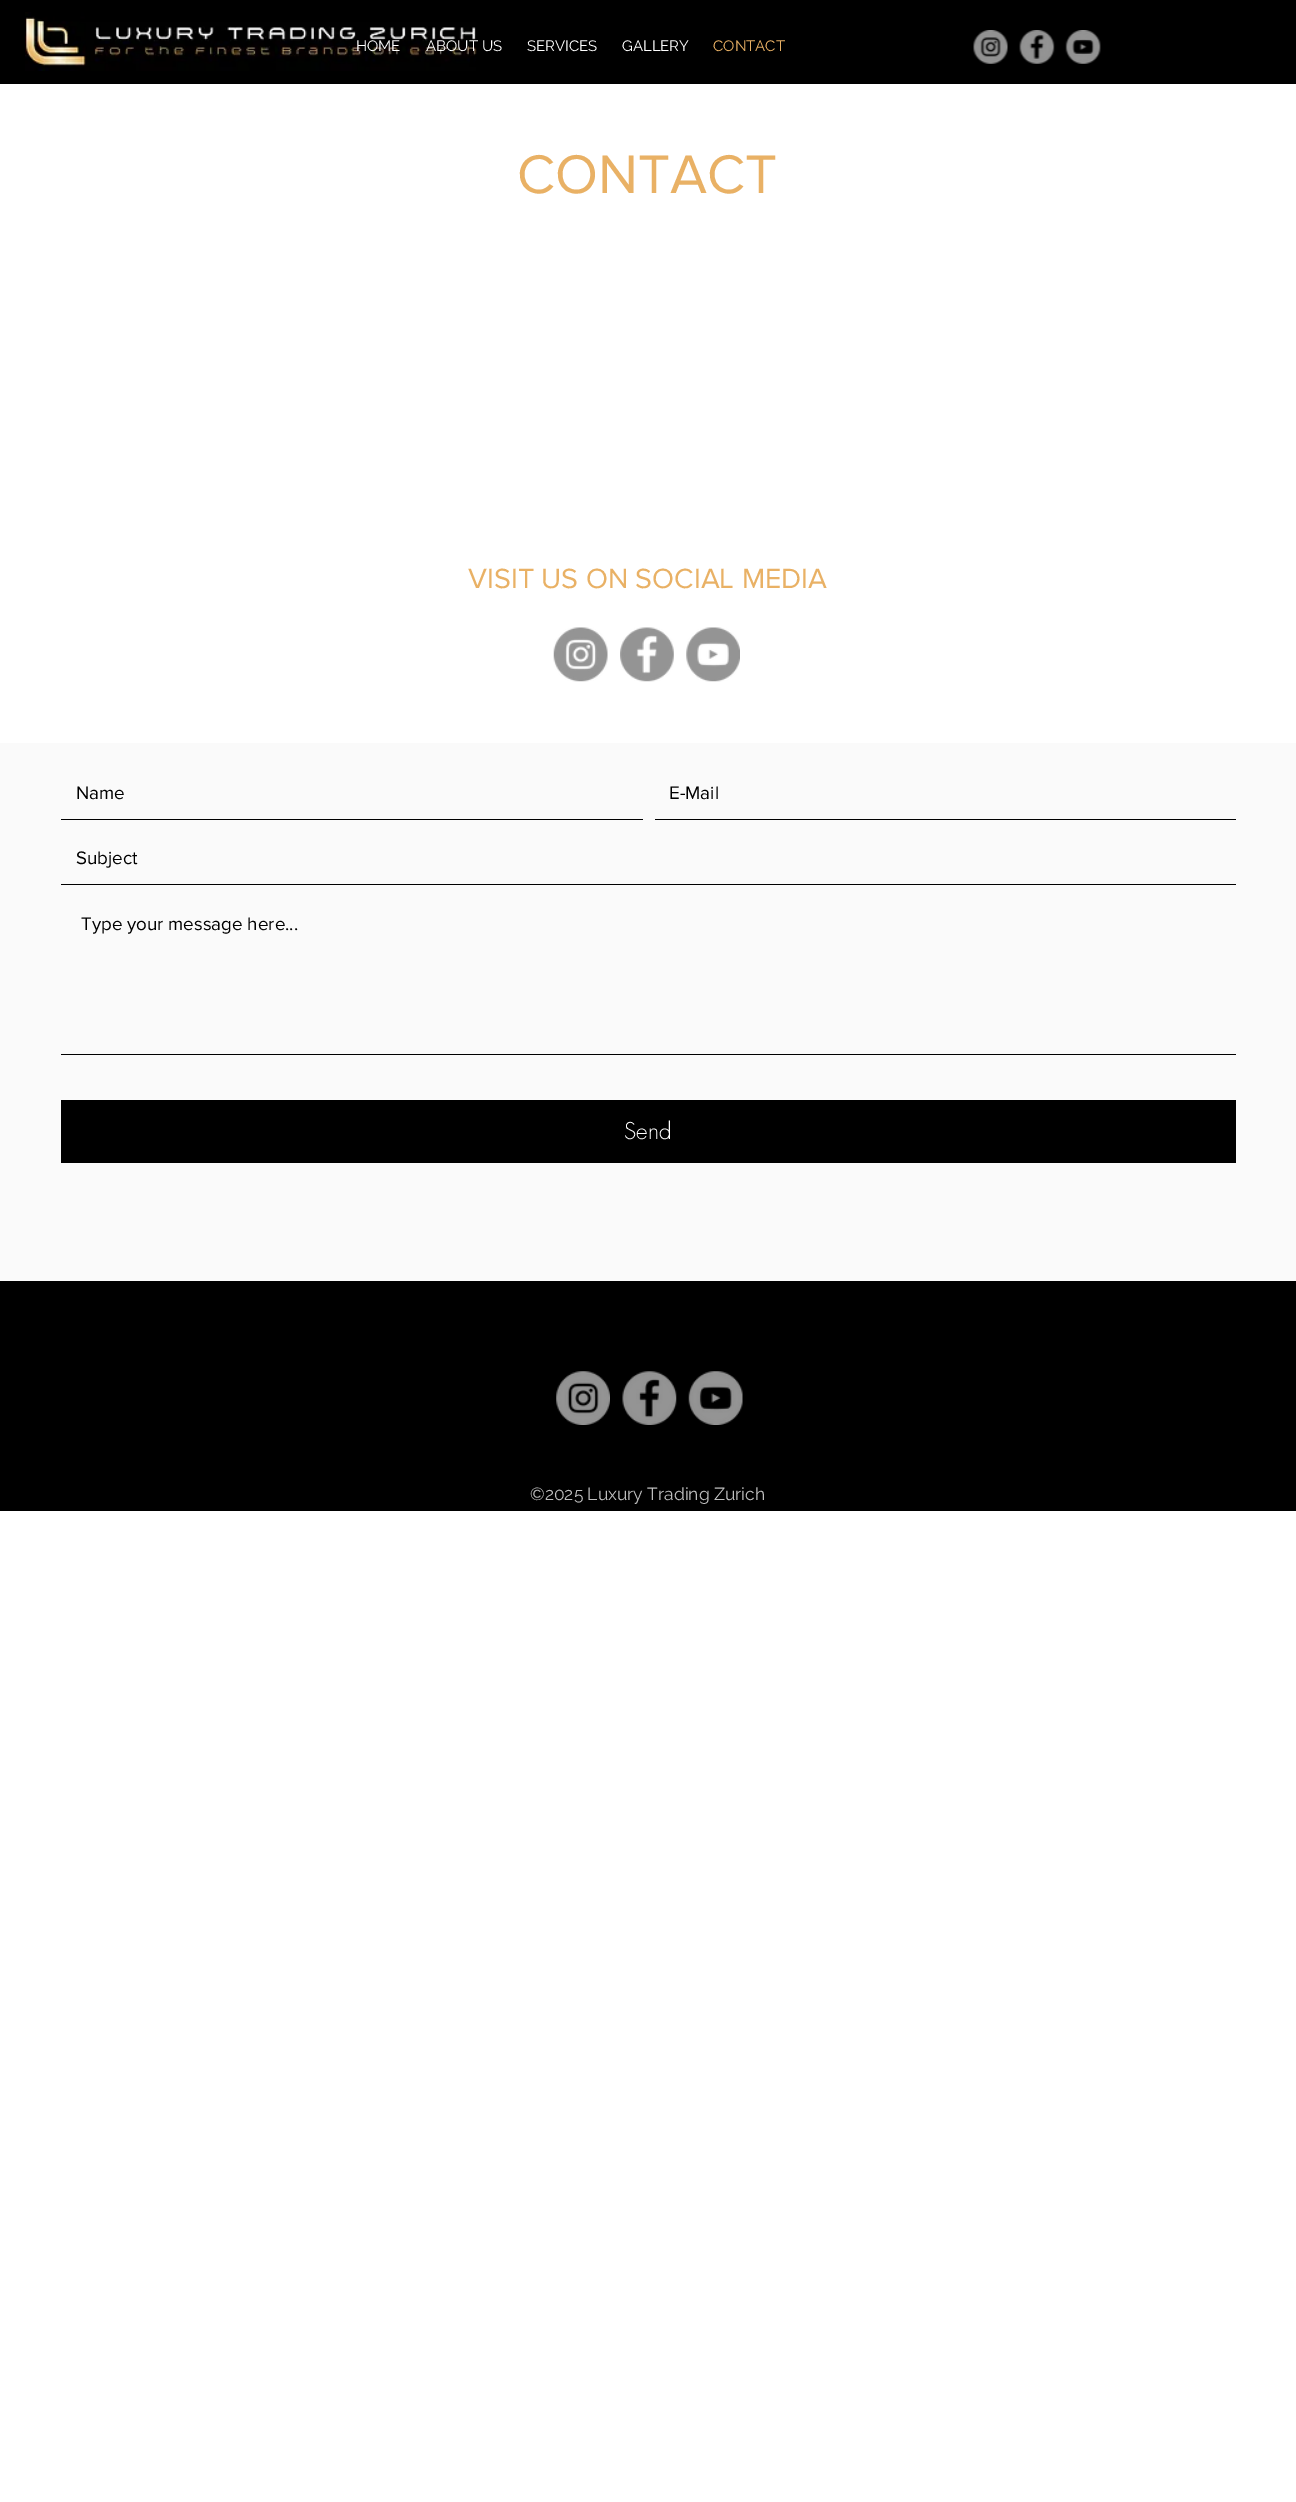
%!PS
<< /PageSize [1296 2502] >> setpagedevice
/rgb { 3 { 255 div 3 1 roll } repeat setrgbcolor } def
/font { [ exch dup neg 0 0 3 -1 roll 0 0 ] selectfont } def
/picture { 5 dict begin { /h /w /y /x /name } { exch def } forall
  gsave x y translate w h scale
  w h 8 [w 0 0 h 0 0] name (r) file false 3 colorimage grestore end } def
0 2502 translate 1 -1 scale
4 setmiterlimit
255 255 255 rgb
0 0 1296 2502 rectfill
0 0 0 rgb
0 0 1296 84 rectfill
(img/1.rgb) 25 12 452 59 picture
(img/2.rgb) 973 30 35 34 picture
(img/3.rgb) 1019 30 36 34 picture
(img/4.rgb) 1065 30 36 34 picture
(img/5.rgb) 553 627 55 55 picture
(img/6.rgb) 620 627 54 55 picture
(img/7.rgb) 686 627 54 55 picture
[
  [0 743 1296 538 250 250 250]
  [61 819 582 1 0 0 0]
  [655 819 581 1 0 0 0]
  [61 884 1175 1 0 0 0]
  [61 1054 1175 1 0 0 0]
  [61 1100 1175 63 0 0 0]
  [0 1281 1296 230 0 0 0]
] { aload pop rgb rectfill } forall
(img/8.rgb) 556 1371 54 54 picture
(img/9.rgb) 622 1371 55 54 picture
(img/10.rgb) 688 1371 55 54 picture
/Raleway-Regular 15 font
255 255 255 rgb
[
  [(HOME) 356 51]
  [(ABOUT US) 426 51]
  [(SERVICES) 527 51]
  [(GALLERY) 622 51]
] { aload pop moveto show } forall
233 177 101 rgb
713 51 moveto (CONTACT) show
/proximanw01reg-Regular 56.25 font
517 193 moveto (CONTACT) show
/proximanw01reg-Regular 28.75 font
468 588 moveto (VISIT US ON SOCIAL MEDIA) show
/proximanw01reg-Regular 18.75 font
0 0 0 rgb
[
  [(Name) 76 799]
  [(E-Mail) 669 799]
  [(Subject) 76 864]
  [(Type your message here...) 81 930]
] { aload pop moveto show } forall
/futura-Light 22.5 font
255 255 255 rgb
624 1139 moveto (Send) show
/Raleway-Regular 17.5 font
191 191 191 rgb
530 1500 moveto (©2025 Luxury Trading Zurich) show
showpage
